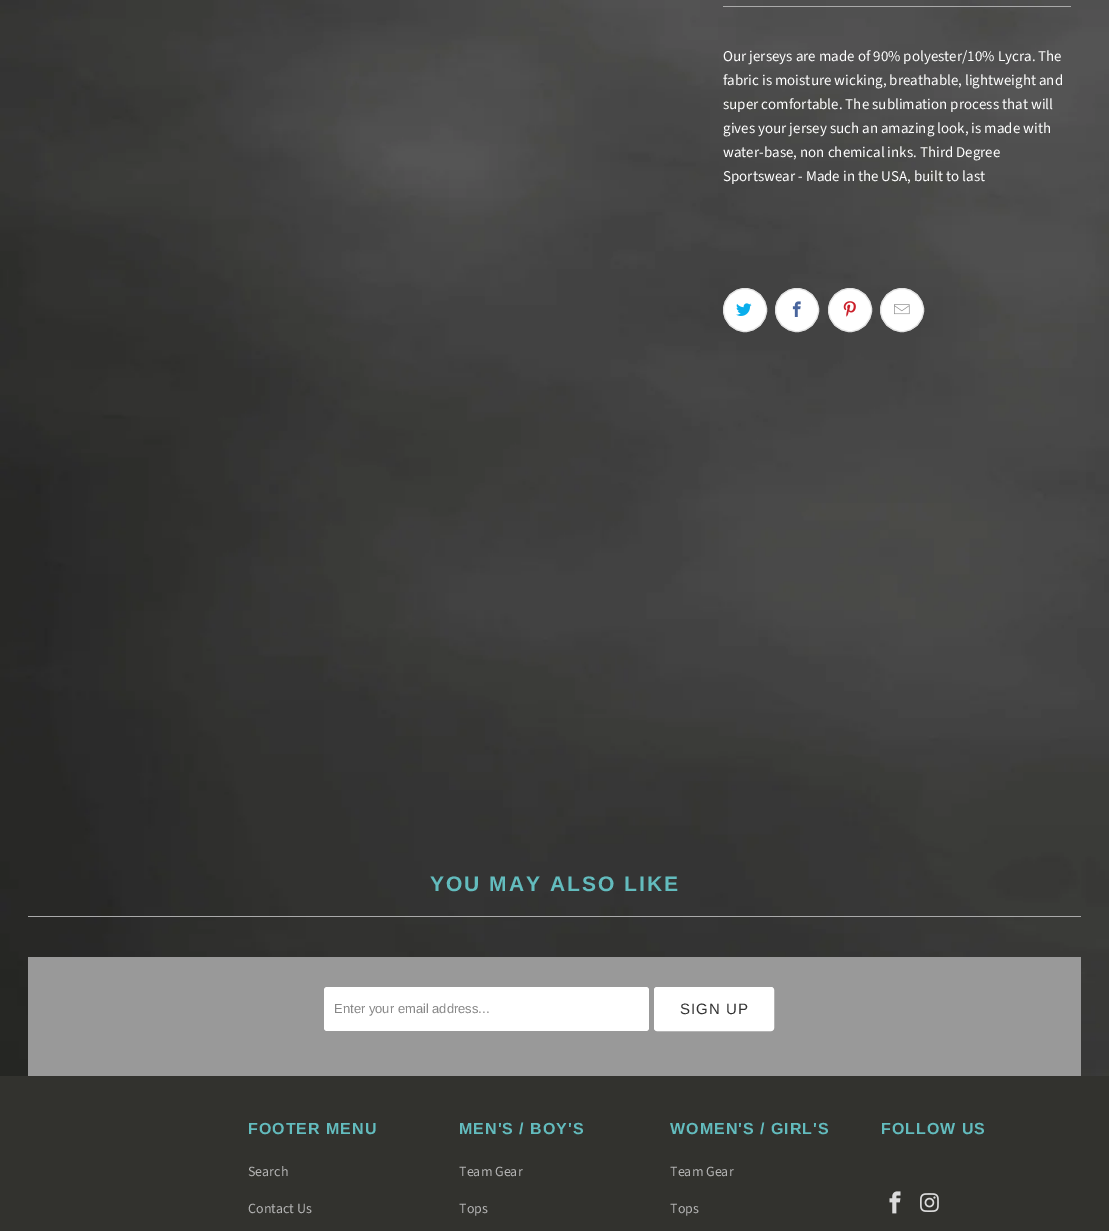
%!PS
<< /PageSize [1109 1231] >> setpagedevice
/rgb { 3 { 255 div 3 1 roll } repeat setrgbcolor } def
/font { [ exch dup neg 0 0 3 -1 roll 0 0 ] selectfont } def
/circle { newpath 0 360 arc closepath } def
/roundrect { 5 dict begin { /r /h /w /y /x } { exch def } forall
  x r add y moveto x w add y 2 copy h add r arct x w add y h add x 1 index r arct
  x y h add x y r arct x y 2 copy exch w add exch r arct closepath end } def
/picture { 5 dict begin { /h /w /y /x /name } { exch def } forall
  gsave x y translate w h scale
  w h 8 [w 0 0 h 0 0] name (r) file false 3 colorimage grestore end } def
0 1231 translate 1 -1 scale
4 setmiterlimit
255 255 255 rgb
0 0 1109 1231 rectfill
(img/1.rgb) 0 0 1109 1076 picture
170 170 170 rgb
723 6 348 1 rectfill
255 255 255 rgb
745 310 21.5 circle gsave fill grestore
226 226 226 rgb
stroke
(img/2.rgb) 736 303 16 13 picture
255 255 255 rgb
797 310 21.5 circle gsave fill grestore
226 226 226 rgb
stroke
(img/3.rgb) 792 301 9 16 picture
255 255 255 rgb
850 310 21.5 circle gsave fill grestore
226 226 226 rgb
stroke
(img/4.rgb) 843 301 13 16 picture
255 255 255 rgb
902 310 21.5 circle gsave fill grestore
226 226 226 rgb
stroke
(img/5.rgb) 894 304 16 11 picture
170 170 170 rgb
28 916 1053 1 rectfill
153 153 153 rgb
28 957 1053 119 rectfill
255 255 255 rgb
324 987 325 44 3 roundrect fill
654.5 987.5 119 43 2.5 roundrect gsave fill grestore
stroke
50 50 46 rgb
0 1076 1109 155 rectfill
(img/6.rgb) 889 1191 12 23 picture
(img/7.rgb) 920 1193 19 19 picture
/SourceSansPro-Regular 15 font
255 255 255 rgb
[
  [(Our jerseys are made of 90% polyester/10% Lycra. The) 723 61]
  [(fabric is moisture wicking, breathable, lightweight and) 723 85]
  [(super comfortable. The sublimation process that will) 723 109]
  [(gives your jersey such an amazing look, is made with) 723 133]
  [(water-base, non chemical inks. Third Degree) 723 157]
  [(Sportswear - Made in the USA, built to last) 723 181]
] { aload pop moveto show } forall
/LiberationSans-Bold 21 font
99 188 190 rgb
430 891 moveto 2 0 (YOU MAY ALSO LIKE) ashow
/LiberationSans-Regular 13 font
136 136 136 rgb
334 1013 moveto (Enter your email address...) show
/LiberationSans-Regular 15 font
51 51 51 rgb
680 1014 moveto 1 0 (SIGN UP) ashow
/LiberationSans-Bold 16 font
99 188 190 rgb
248 1134 moveto 1 0 (FOOTER MENU) ashow
/SourceSansPro-Regular 14 font
181 181 181 rgb
248 1176 moveto (Search) show
248 1213 moveto (Contact Us) show
/LiberationSans-Bold 16 font
99 188 190 rgb
459 1134 moveto 1 0 (MEN'S / BOY'S) ashow
/SourceSansPro-Regular 14 font
181 181 181 rgb
459 1176 moveto (Team Gear) show
459 1213 moveto (Tops) show
/LiberationSans-Bold 16 font
99 188 190 rgb
670 1134 moveto 1 0 (WOMEN'S / GIRL'S) ashow
/SourceSansPro-Regular 14 font
181 181 181 rgb
670 1176 moveto (Team Gear) show
670 1213 moveto (Tops) show
/LiberationSans-Bold 16 font
99 188 190 rgb
881 1134 moveto 1 0 (FOLLOW US) ashow
showpage
